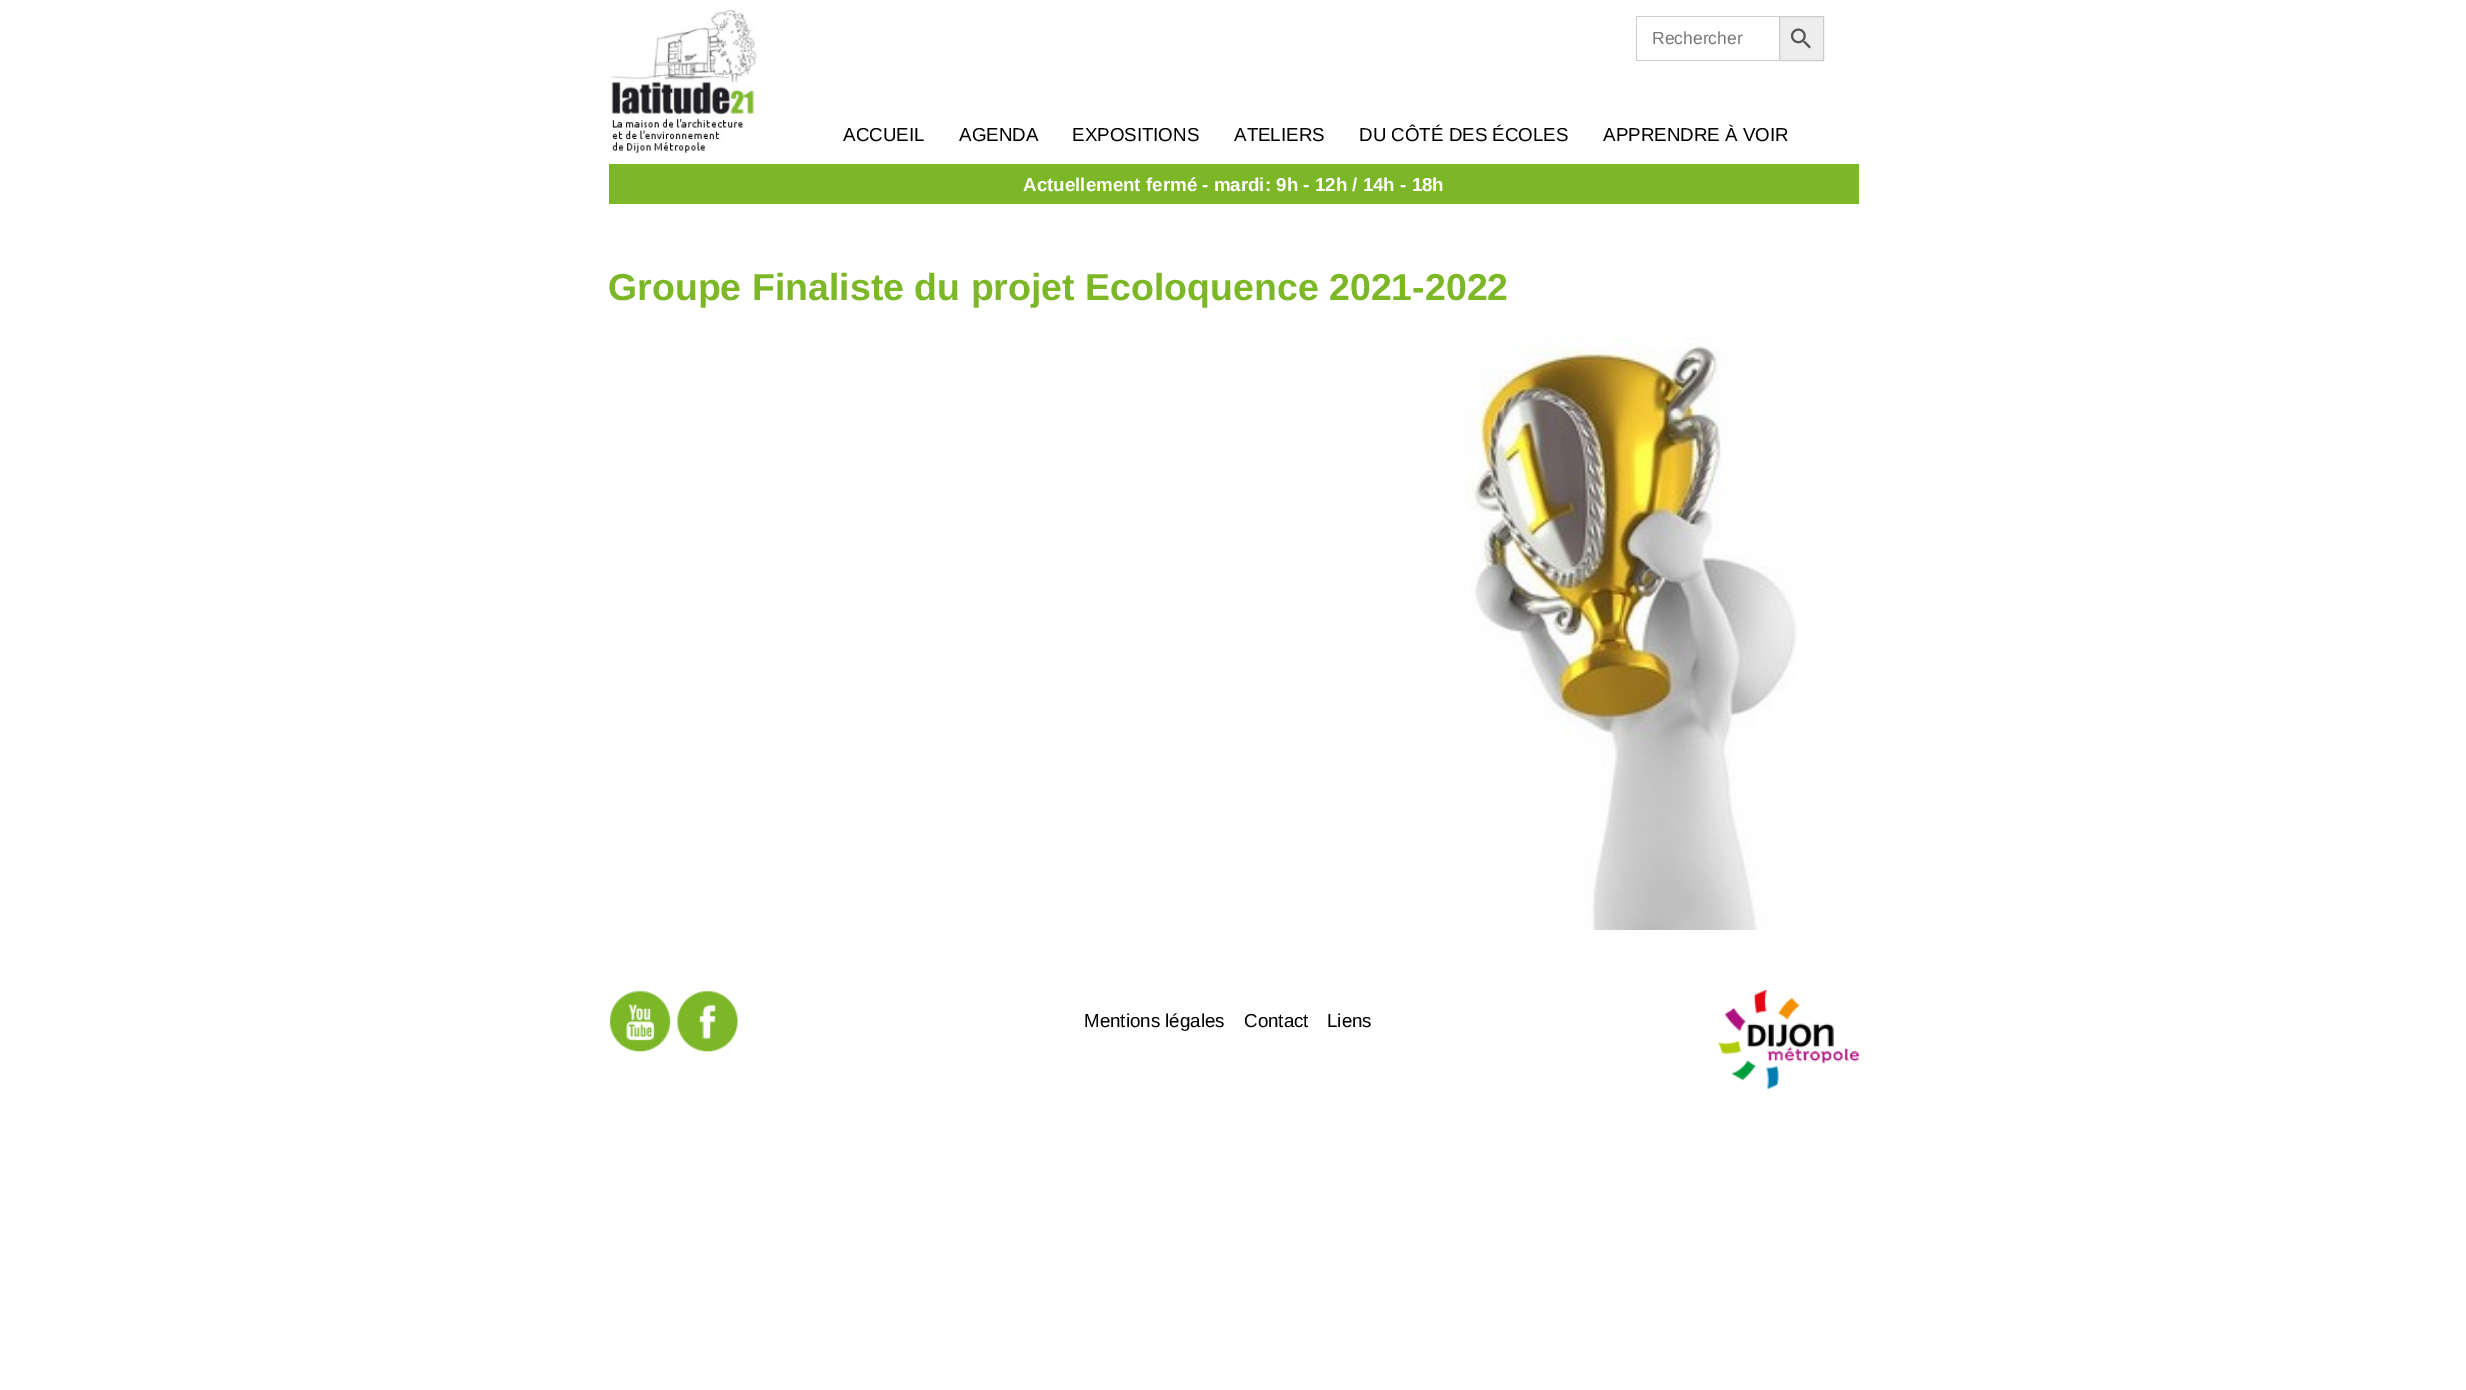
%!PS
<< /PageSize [2466 1390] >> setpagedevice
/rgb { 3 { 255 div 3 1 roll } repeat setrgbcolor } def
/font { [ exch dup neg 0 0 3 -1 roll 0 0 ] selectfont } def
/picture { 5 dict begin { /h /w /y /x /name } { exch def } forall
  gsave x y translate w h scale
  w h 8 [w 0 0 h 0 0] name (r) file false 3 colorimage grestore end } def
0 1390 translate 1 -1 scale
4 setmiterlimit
255 255 255 rgb
0 0 2466 1390 rectfill
(img/1.rgb) 610 10 147 143 picture
[
  [1636 16 143 1 204 204 204]
  [1636 60 143 1 204 204 204]
  [1636 16 1 45 204 204 204]
] { aload pop rgb rectfill } forall
237 237 237 rgb
1779.5 16.5 moveto 1823.5 16.5 lineto 1823.5 60.5 lineto 1779.5 60.5 lineto closepath gsave fill grestore
204 204 204 rgb
stroke
(img/2.rgb) 1790 28 21 21 picture
124 183 39 rgb
609 164 1250 40 rectfill
(img/3.rgb) 1464 334 333 596 picture
(img/4.rgb) 609 991 62 61 picture
(img/5.rgb) 677 991 61 61 picture
(img/6.rgb) 1718 990 141 99 picture
/LiberationSans-Regular 17.5 font
117 117 117 rgb
1652 44 moveto (Rechercher) show
/LiberationSans-Regular 18.75 font
0 0 0 rgb
[
  [(ACCUEIL) 843 141]
  [(AGENDA) 959 141]
  [(EXPOSITIONS) 1072 141]
  [(ATELIERS) 1234 141]
  [(DU CÔTÉ DES ÉCOLES) 1359 141]
  [(APPRENDRE À VOIR) 1603 141]
] { aload pop moveto show } forall
/LiberationSans-Bold 18.75 font
255 255 255 rgb
1023 191 moveto (Actuellement fermé - mardi: 9h - 12h / 14h - 18h) show
/LiberationSans-Bold 37.5 font
124 183 39 rgb
608 300 moveto (Groupe Finaliste du projet Ecoloquence 2021-2022) show
/LiberationSans-Regular 18.75 font
0 0 0 rgb
[
  [(Mentions légales) 1084 1027]
  [(Contact) 1244 1027]
  [(Liens) 1327 1027]
] { aload pop moveto show } forall
showpage
